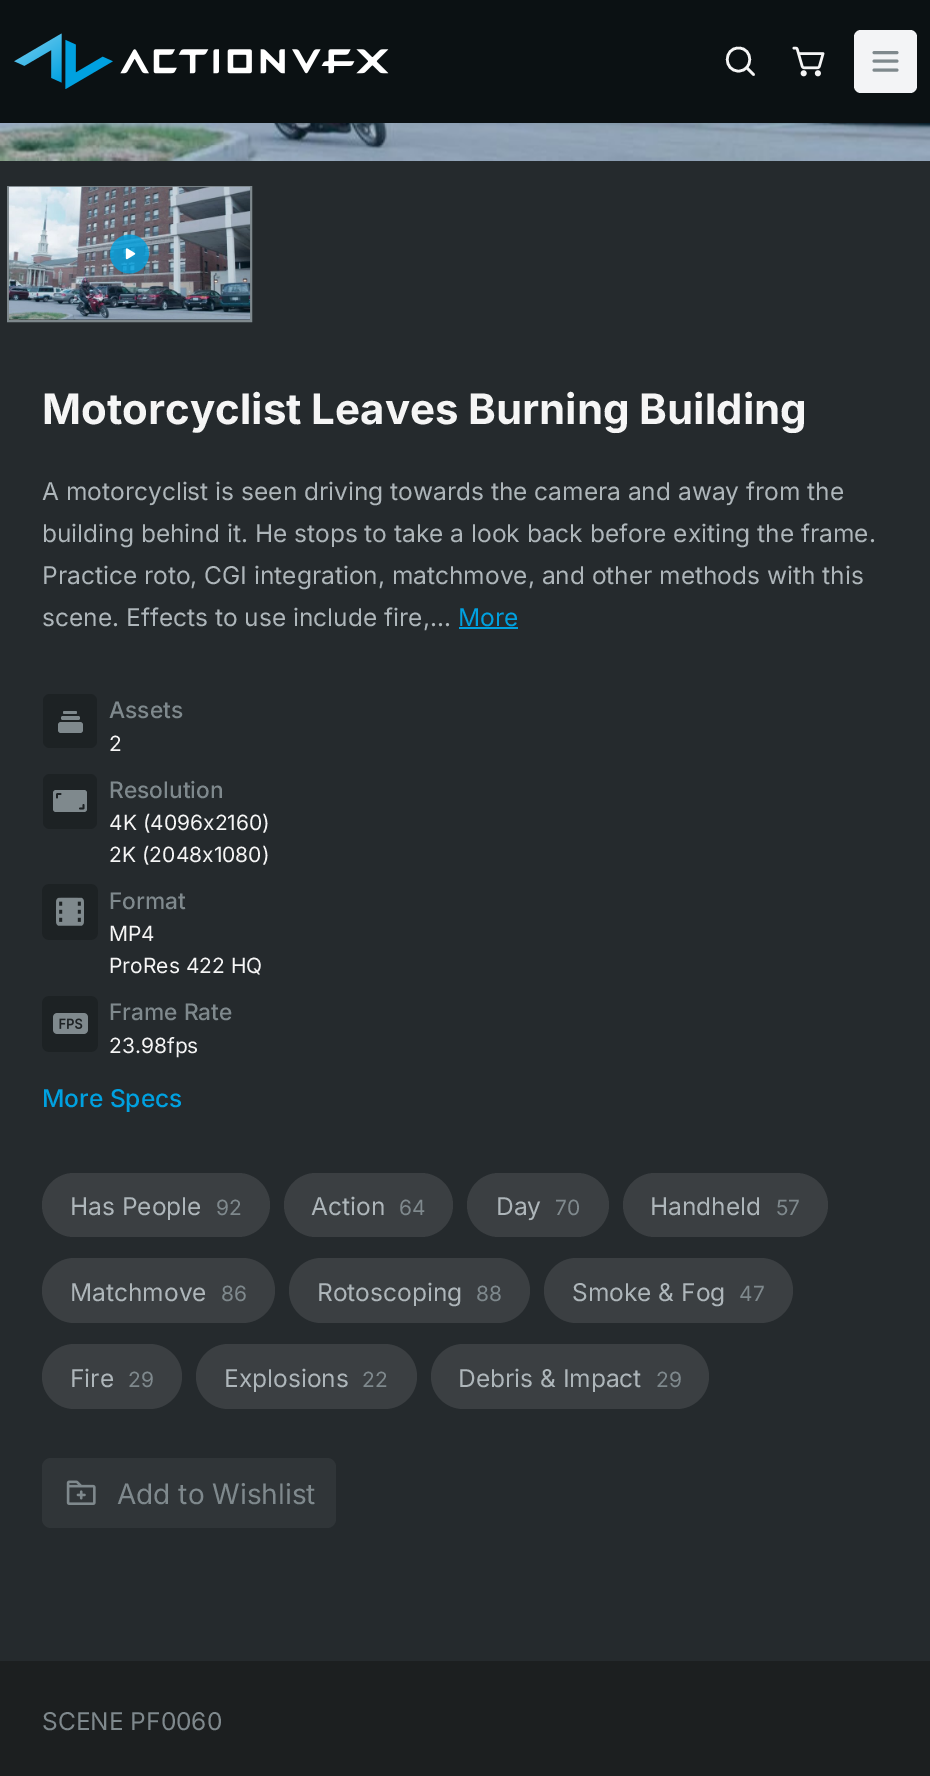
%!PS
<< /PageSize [930 1776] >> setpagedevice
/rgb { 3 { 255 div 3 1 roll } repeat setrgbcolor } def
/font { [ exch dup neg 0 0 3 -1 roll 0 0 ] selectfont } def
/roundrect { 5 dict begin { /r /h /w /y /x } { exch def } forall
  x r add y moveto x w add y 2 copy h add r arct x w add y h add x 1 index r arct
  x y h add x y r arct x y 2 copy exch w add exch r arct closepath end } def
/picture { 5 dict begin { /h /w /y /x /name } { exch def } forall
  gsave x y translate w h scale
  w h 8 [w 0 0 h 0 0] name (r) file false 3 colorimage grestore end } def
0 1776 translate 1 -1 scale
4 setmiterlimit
37 42 45 rgb
0 0 930 1776 rectfill
11 17 19 rgb
0 0 930 123 rectfill
(img/1.rgb) 14 33 375 56 picture
245 245 245 rgb
2.6 setlinewidth
1 setlinecap
1 setlinejoin
738.5 71 moveto 753.5 71 753.5 48 738.5 48 curveto 723.5 48 723.5 71 738.5 71 curveto closepath 746.5 67.5 moveto 753.5 74.5 lineto stroke
(img/2.rgb) 792 46 33 31 picture
243 244 246 rgb
854 30 63 63 7 roundrect fill
127 137 141 rgb
2.9 setlinewidth
874 52.5 moveto 897 52.5 lineto 874 61 moveto 897 61 lineto 874 70 moveto 897 70 lineto stroke
(img/3.rgb) 0 123 930 38 picture
2 setlinewidth
0 setlinecap
0 setlinejoin
8 187 243 134 rectstroke
28 31 32 rgb
9 319 241 1 rectfill
(img/4.rgb) 8 186 243 134 picture
(img/5.rgb) 110 234 39 40 picture
0 161 224 rgb
459 627 59 2 rectfill
29 34 36 rgb
43 694 54 54 7 roundrect fill
127 137 141 rgb
58 722 25 11 3 roundrect fill
61 716 19 4 2 roundrect fill
63 711 14 3 1.5 roundrect fill
29 34 36 rgb
43 774 54 55 7 roundrect fill
127 137 141 rgb
53 790 34 22 3 roundrect fill
29 34 36 rgb
1.7 setlinewidth
1 setlinecap
57 797.5 moveto 57 793 56.5 794 60.5 794 curveto 83.5 805 moveto 83.5 809 84.5 808.5 80 808.5 curveto stroke
(img/6.rgb) 42 884 56 56 picture
(img/7.rgb) 42 996 56 56 picture
59 63 66 rgb
42 1173 228 64 32 roundrect fill
284 1173 169 64 32 roundrect fill
467 1173 142 64 32 roundrect fill
623 1173 205 64 32 roundrect fill
42 1258 233 65 32.5 roundrect fill
289 1258 241 65 32.5 roundrect fill
544 1258 249 65 32.5 roundrect fill
42 1344 140 65 32.5 roundrect fill
196 1344 221 65 32.5 roundrect fill
431 1344 278 65 32.5 roundrect fill
48 53 56 rgb
42 1458 294 70 9 roundrect fill
(img/8.rgb) 66 1480 30 25 picture
28 31 32 rgb
0 1661 930 115 rectfill
/Inter-Bold 42 font
245 245 245 rgb
42 424 moveto (Motorcyclist Leaves Burning Building) show
/Inter-Regular 24.5 font
174 182 186 rgb
[
  [(A motorcyclist is seen driving towards the camera and away from the) 42 500]
  [(building behind it. He stops to take a look back before exiting the frame.) 42 542]
  [(Practice roto, CGI integration, matchmove, and other methods with this) 42 584]
  [(scene. Effects to use include fire,...) 42 626]
] { aload pop moveto show } forall
0 161 224 rgb
458 626 moveto (More) show
/Inter-Medium 22.75 font
127 137 141 rgb
109 718 moveto (Assets) show
/Inter-Regular 21 font
245 245 245 rgb
109 751 moveto (2) show
/Inter-Medium 22.75 font
127 137 141 rgb
109 798 moveto (Resolution) show
/Inter-Regular 21 font
245 245 245 rgb
109 830 moveto (4K \(4096x2160\)) show
109 862 moveto (2K \(2048x1080\)) show
/Inter-Medium 22.75 font
127 137 141 rgb
109 909 moveto (Format) show
/Inter-Regular 21 font
245 245 245 rgb
109 941 moveto (MP4) show
109 973 moveto (ProRes 422 HQ) show
/Inter-Medium 22.75 font
127 137 141 rgb
109 1020 moveto (Frame Rate) show
/Inter-Regular 21 font
245 245 245 rgb
109 1053 moveto (23.98fps) show
/Inter-Medium 24.5 font
0 161 224 rgb
42 1107 moveto (More Specs) show
/Inter-Regular 24.5 font
174 182 186 rgb
70 1215 moveto (Has People) show
/Inter-Regular 21 font
127 137 141 rgb
216 1215 moveto (92) show
/Inter-Regular 24.5 font
174 182 186 rgb
311 1215 moveto (Action) show
/Inter-Regular 21 font
127 137 141 rgb
399 1215 moveto (64) show
/Inter-Regular 24.5 font
174 182 186 rgb
496 1215 moveto (Day) show
/Inter-Regular 21 font
127 137 141 rgb
555 1215 moveto (70) show
/Inter-Regular 24.5 font
174 182 186 rgb
650 1215 moveto (Handheld) show
/Inter-Regular 21 font
127 137 141 rgb
776 1215 moveto (57) show
/Inter-Regular 24.5 font
174 182 186 rgb
70 1301 moveto (Matchmove) show
/Inter-Regular 21 font
127 137 141 rgb
221 1301 moveto (86) show
/Inter-Regular 24.5 font
174 182 186 rgb
317 1301 moveto (Rotoscoping) show
/Inter-Regular 21 font
127 137 141 rgb
476 1301 moveto (88) show
/Inter-Regular 24.5 font
174 182 186 rgb
572 1301 moveto (Smoke & Fog) show
/Inter-Regular 21 font
127 137 141 rgb
739 1301 moveto (47) show
/Inter-Regular 24.5 font
174 182 186 rgb
70 1387 moveto (Fire) show
/Inter-Regular 21 font
127 137 141 rgb
128 1387 moveto (29) show
/Inter-Regular 24.5 font
174 182 186 rgb
224 1387 moveto (Explosions) show
/Inter-Regular 21 font
127 137 141 rgb
362 1387 moveto (22) show
/Inter-Regular 24.5 font
174 182 186 rgb
458 1387 moveto (Debris & Impact) show
/Inter-Regular 21 font
127 137 141 rgb
656 1387 moveto (29) show
/Inter-Regular 28 font
117 1504 moveto (Add to Wishlist) show
/Inter-Regular 24.5 font
42 1730 moveto (SCENE PF0060) show
showpage
